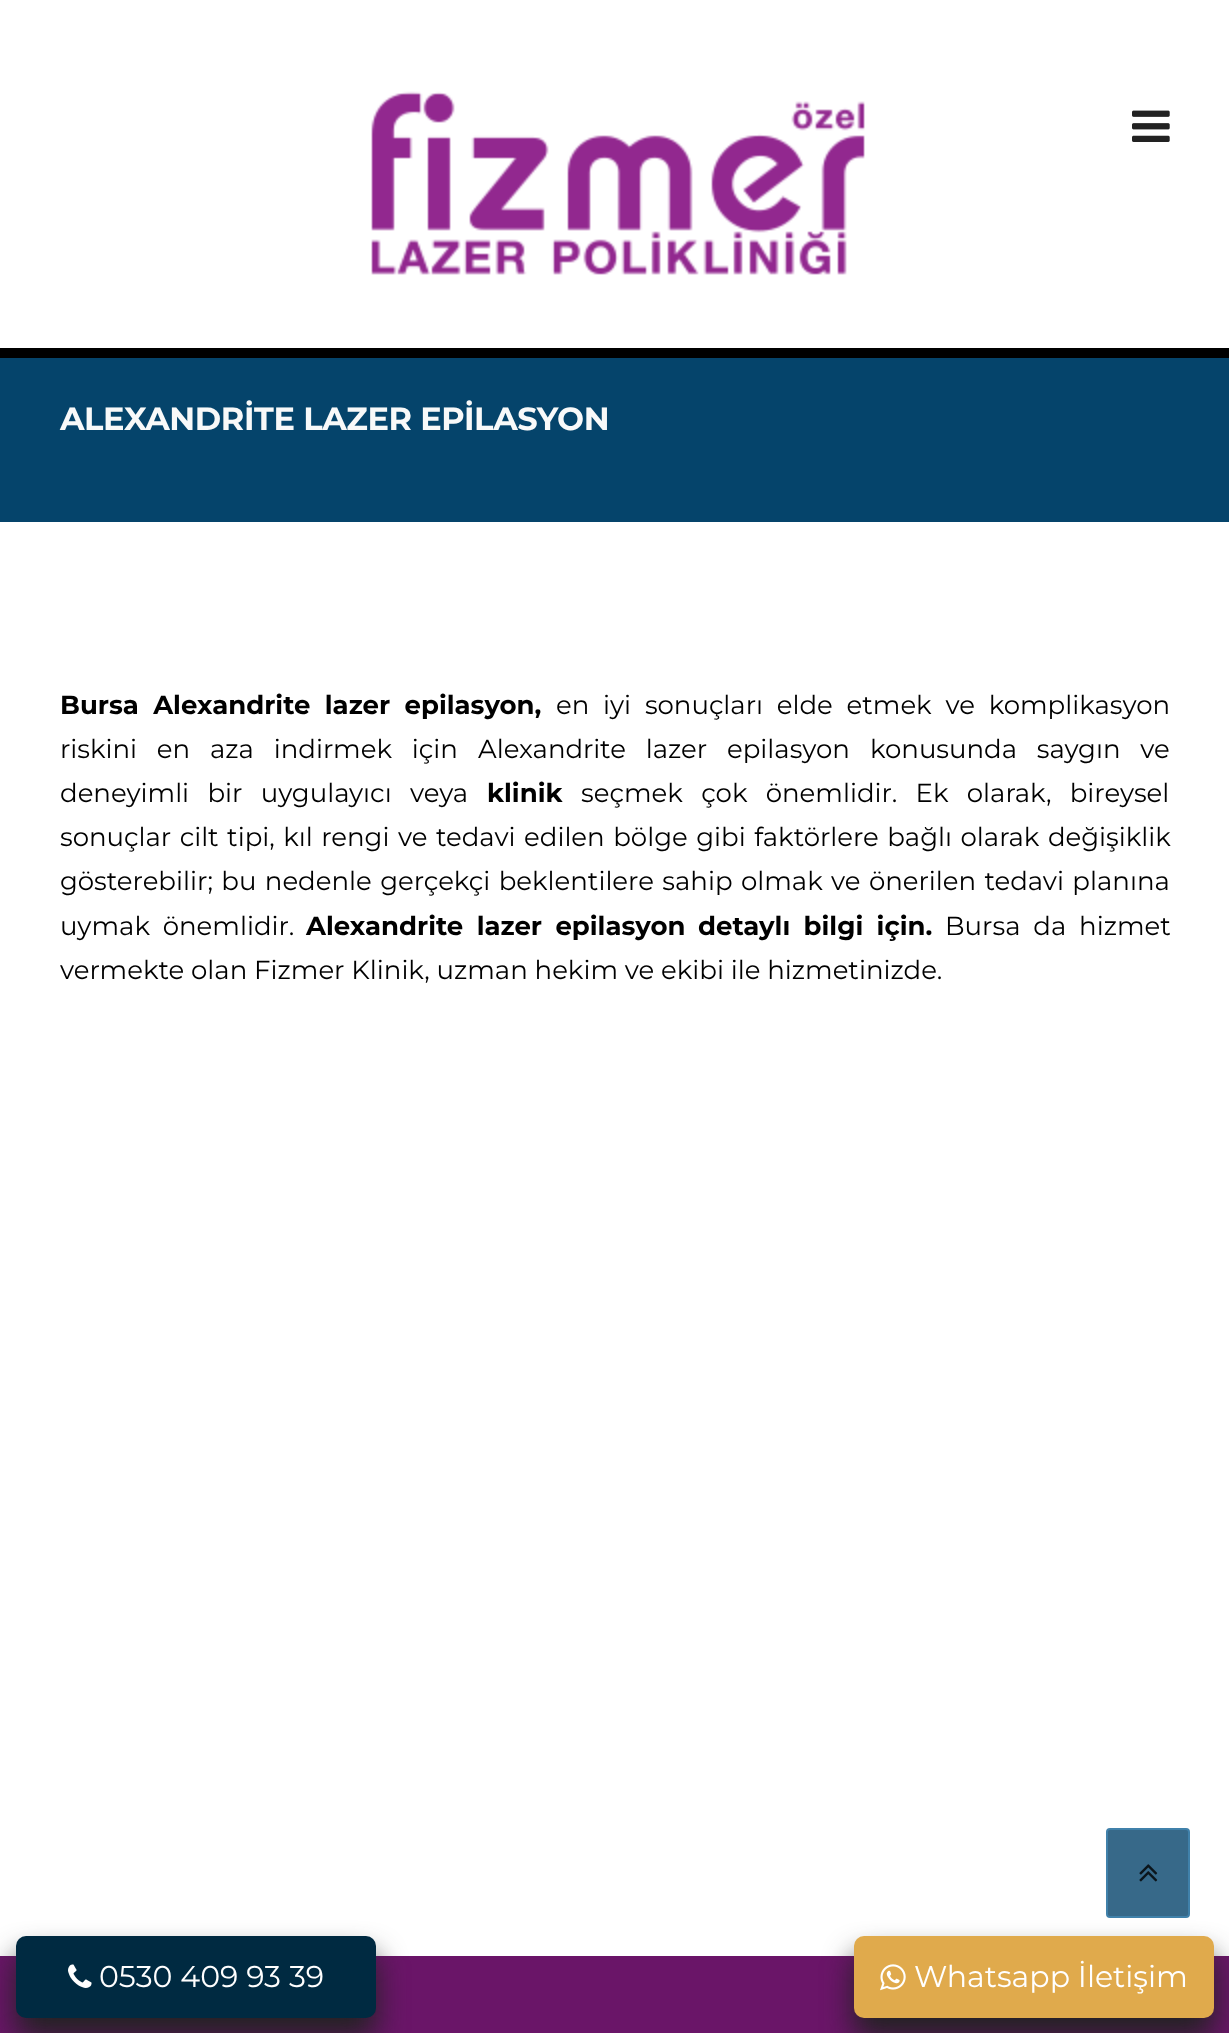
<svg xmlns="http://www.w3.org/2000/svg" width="1229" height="2033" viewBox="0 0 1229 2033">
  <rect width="100%" height="100%" fill="rgb(255,255,255)"/>
  <rect x="0" y="348" width="1229" height="10" fill="rgb(0,0,0)"/>
  <image x="371" y="91" width="494" height="184" href="pic1.png"/>
  <image x="1132" y="110" width="38" height="32" href="pic2.png"/>
  <rect x="0" y="358" width="1229" height="164" fill="rgb(5,68,107)"/>
  <text x="60" y="430" font-family="Montserrat" font-size="32" font-weight="bold" letter-spacing="-0.4" fill="rgb(248,249,249)">ALEXANDRİTE LAZER EPİLASYON</text>
  <text x="60" y="714" word-spacing="7" font-family="Montserrat" font-size="26" font-weight="bold" fill="rgb(0,0,0)">Bursa Alexandrite lazer epilasyon,</text>
  <g font-family="Montserrat" font-size="26" fill="rgb(0,0,0)">
    <text x="556" y="714" word-spacing="7">en iyi sonuçları elde etmek ve komplikasyon</text>
    <text x="60" y="758" word-spacing="13">riskini en aza indirmek için</text>
    <text x="478" y="758" word-spacing="13">Alexandrite lazer epilasyon</text>
    <text x="870" y="758" word-spacing="13">konusunda saygın ve</text>
    <text x="60" y="802" word-spacing="11.5">deneyimli bir uygulayıcı veya</text>
  </g>
  <text x="487" y="802" font-family="Montserrat" font-size="26" font-weight="bold" fill="rgb(0,0,0)">klinik</text>
  <g font-family="Montserrat" font-size="26" fill="rgb(0,0,0)">
    <text x="581" y="802" word-spacing="11.5">seçmek çok önemlidir. Ek olarak, bireysel</text>
    <text>
      <tspan x="60" y="846" word-spacing="1.75">sonuçlar cilt tipi, kıl rengi ve tedavi edilen bölge gibi faktörlere bağlı olarak değişiklik</tspan>
      <tspan x="60" y="890" word-spacing="1.6">gösterebilir; bu nedenle gerçekçi beklentilere sahip olmak ve önerilen tedavi planına</tspan>
      <tspan x="60" y="935" word-spacing="6">uymak önemlidir.</tspan>
    </text>
  </g>
  <g font-family="Montserrat" font-size="26" font-weight="bold" fill="rgb(0,0,0)">
    <text x="306" y="935" word-spacing="6">Alexandrite lazer epilasyon</text>
    <text x="698" y="935" word-spacing="6">detaylı bilgi için.</text>
  </g>
  <g font-family="Montserrat" font-size="26" fill="rgb(0,0,0)">
    <text x="945" y="935" word-spacing="6">Bursa da hizmet</text>
    <text x="60" y="979">vermekte olan Fizmer Klinik, uzman hekim ve ekibi ile hizmetinizde.</text>
  </g>
  <rect x="0" y="1956" width="1229" height="77" fill="rgb(106,21,104)"/>
  <rect x="16" y="1956" width="360" height="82" rx="10" fill="rgb(34,34,34)" filter="blur(15px)"/>
  <rect x="16" y="1936" width="360" height="82" rx="10" fill="rgb(0,42,65)"/>
  <image x="68" y="1964" width="24" height="24" href="pic3.png"/>
  <text x="99" y="1987" font-family="Montserrat" font-size="30" fill="rgb(255,255,255)">0530 409 93 39</text>
  <rect x="1107" y="1829" width="82" height="88" rx="3" fill="rgb(55,105,137)" stroke="rgb(64,129,170)" stroke-width="2"/>
  <rect x="854" y="1956" width="360" height="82" rx="10" fill="rgb(34,34,34)" filter="blur(15px)"/>
  <rect x="854" y="1936" width="360" height="82" rx="10" fill="rgb(224,170,76)"/>
  <image x="880" y="1964" width="26" height="27" href="pic4.png"/>
  <text x="914" y="1987" font-family="Montserrat" font-size="30" fill="rgb(255,255,255)">Whatsapp İletişim</text>
  <image x="1139" y="1864" width="19" height="18" href="pic5.png"/>
</svg>
